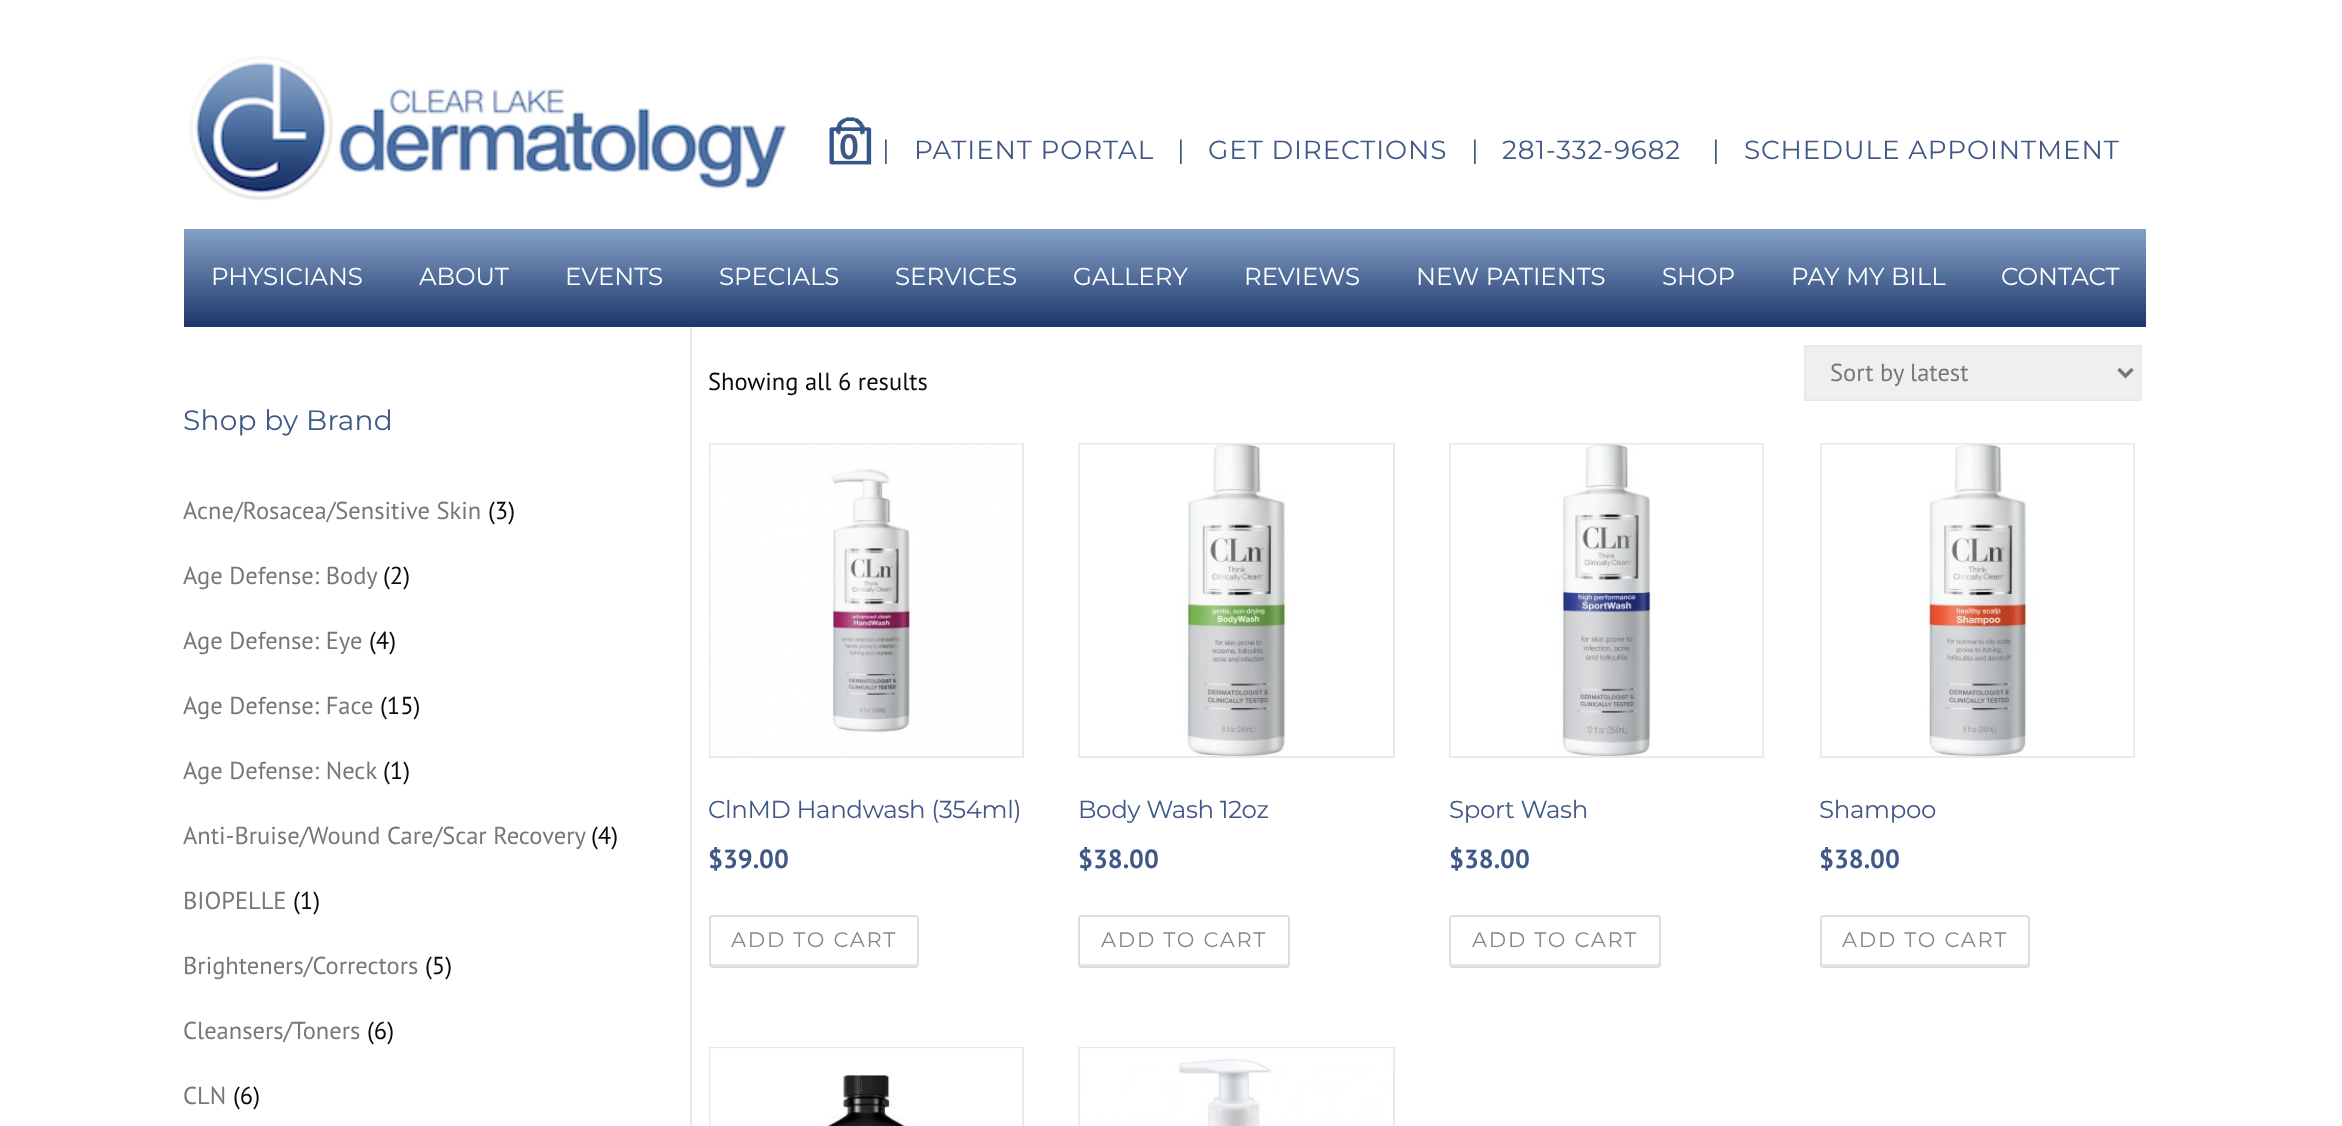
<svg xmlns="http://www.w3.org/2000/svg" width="2342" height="1126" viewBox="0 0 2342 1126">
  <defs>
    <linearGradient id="g1" gradientUnits="userSpaceOnUse" x1="1165" y1="229" x2="1165" y2="327"><stop offset="0" stop-color="rgb(132,161,198)"/><stop offset="1" stop-color="rgb(28,54,107)"/></linearGradient>
  </defs>
  <rect width="100%" height="100%" fill="rgb(255,255,255)"/>
  <image x="189" y="56" width="598" height="145" href="pic1.png"/>
  <image x="829" y="117" width="43" height="48" href="pic2.png"/>
  <text x="839" y="159" font-family="PT Sans" font-size="35" font-weight="bold" fill="rgb(64,88,133)">0</text>
  <g font-family="Montserrat" font-size="26.25" letter-spacing="0.9" fill="rgb(64,88,133)">
    <text x="882" y="159">|</text>
    <text x="914" y="159">PATIENT PORTAL</text>
    <text x="1177" y="159">|</text>
    <text x="1208" y="159">GET DIRECTIONS</text>
    <text x="1471" y="159">|</text>
    <text x="1502" y="159">281-332-9682</text>
    <text x="1712" y="159">|</text>
    <text x="1744" y="159">SCHEDULE APPOINTMENT</text>
  </g>
  <rect x="184" y="229" width="1962" height="98" fill="url(#g1)"/>
  <g font-family="Montserrat" font-size="24.5" fill="rgb(255,255,255)">
    <text x="211" y="285">PHYSICIANS</text>
    <text x="419" y="285">ABOUT</text>
    <text x="565" y="285">EVENTS</text>
    <text x="719" y="285">SPECIALS</text>
    <text x="895" y="285">SERVICES</text>
    <text x="1073" y="285">GALLERY</text>
    <text x="1244" y="285">REVIEWS</text>
    <text x="1416" y="285">NEW PATIENTS</text>
    <text x="1662" y="285">SHOP</text>
    <text x="1791" y="285">PAY MY BILL</text>
    <text x="2001" y="285">CONTACT</text>
  </g>
  <text x="183" y="430" font-family="Montserrat" font-size="28" letter-spacing="0.25" fill="rgb(64,88,133)">Shop by Brand</text>
  <text x="183" y="519" font-family="PT Sans" font-size="24.5" fill="rgb(119,119,119)">Acne/Rosacea/Sensitive Skin</text>
  <text x="488" y="519" font-family="PT Sans" font-size="24.5" fill="rgb(10,10,10)">(3)</text>
  <text x="183" y="584" font-family="PT Sans" font-size="24.5" fill="rgb(119,119,119)">Age Defense: Body</text>
  <text x="383" y="584" font-family="PT Sans" font-size="24.5" fill="rgb(10,10,10)">(2)</text>
  <text x="183" y="649" font-family="PT Sans" font-size="24.5" fill="rgb(119,119,119)">Age Defense: Eye</text>
  <text x="369" y="649" font-family="PT Sans" font-size="24.5" fill="rgb(10,10,10)">(4)</text>
  <text x="183" y="714" font-family="PT Sans" font-size="24.5" fill="rgb(119,119,119)">Age Defense: Face</text>
  <text x="380" y="714" font-family="PT Sans" font-size="24.5" fill="rgb(10,10,10)">(15)</text>
  <text x="183" y="779" font-family="PT Sans" font-size="24.5" fill="rgb(119,119,119)">Age Defense: Neck</text>
  <text x="383" y="779" font-family="PT Sans" font-size="24.5" fill="rgb(10,10,10)">(1)</text>
  <text x="183" y="844" font-family="PT Sans" font-size="24.5" fill="rgb(119,119,119)">Anti-Bruise/Wound Care/Scar Recovery</text>
  <text x="591" y="844" font-family="PT Sans" font-size="24.5" fill="rgb(10,10,10)">(4)</text>
  <text x="183" y="909" font-family="PT Sans" font-size="24.5" fill="rgb(119,119,119)">BIOPELLE</text>
  <text x="293" y="909" font-family="PT Sans" font-size="24.5" fill="rgb(10,10,10)">(1)</text>
  <text x="183" y="974" font-family="PT Sans" font-size="24.5" fill="rgb(119,119,119)">Brighteners/Correctors</text>
  <text x="425" y="974" font-family="PT Sans" font-size="24.5" fill="rgb(10,10,10)">(5)</text>
  <text x="183" y="1039" font-family="PT Sans" font-size="24.5" fill="rgb(119,119,119)">Cleansers/Toners</text>
  <text x="367" y="1039" font-family="PT Sans" font-size="24.5" fill="rgb(10,10,10)">(6)</text>
  <text x="183" y="1104" font-family="PT Sans" font-size="24.5" fill="rgb(119,119,119)">CLN</text>
  <text x="233" y="1104" font-family="PT Sans" font-size="24.5" fill="rgb(10,10,10)">(6)</text>
  <rect x="690" y="327" width="2" height="799" fill="rgb(233,233,233)"/>
  <text x="708" y="390" font-family="PT Sans" font-size="24.5" fill="rgb(10,10,10)">Showing all 6 results</text>
  <rect x="1805" y="346" width="336" height="54" fill="rgb(239,239,239)" stroke="rgb(233,233,233)" stroke-width="2"/>
  <path d="M2118.5 369L2125.5 376L2132.5 369" fill="none" stroke="rgb(119,119,119)" stroke-width="3.5"/>
  <text x="1830" y="381" font-family="PT Sans" font-size="24.5" fill="rgb(119,119,119)">Sort by latest</text>
  <rect x="710" y="444" width="313" height="313" fill="none" stroke="rgb(233,233,233)" stroke-width="2"/>
  <image x="710" y="444" width="312" height="312" href="pic3.png"/>
  <text x="708" y="818" font-family="Montserrat" font-size="24.5" letter-spacing="-0.35" fill="rgb(64,88,133)">ClnMD Handwash (354ml)</text>
  <text x="708" y="868" font-family="PT Sans" font-size="26.25" font-weight="bold" fill="rgb(64,88,133)">$39.00</text>
  <path d="M711 964C711 965 712 966 713 966H915C917 966 917 964 917 962C917 963 916 964 915 964Z" fill="rgb(230,230,230)"/>
  <rect x="710" y="916" width="208" height="51" rx="3" fill="none" stroke="rgb(221,221,221)" stroke-width="2"/>
  <text x="731" y="947" font-family="Montserrat" font-size="21" letter-spacing="1.75" fill="rgb(136,136,136)">ADD TO CART</text>
  <rect x="1079" y="444" width="315" height="313" fill="none" stroke="rgb(233,233,233)" stroke-width="2"/>
  <image x="1079" y="444" width="314" height="312" href="pic4.png"/>
  <text x="1078" y="818" font-family="Montserrat" font-size="24.5" letter-spacing="-0.35" fill="rgb(64,88,133)">Body Wash 12oz</text>
  <text x="1078" y="868" font-family="PT Sans" font-size="26.25" font-weight="bold" fill="rgb(64,88,133)">$38.00</text>
  <path d="M1080 962V964C1080 965 1081 966 1082 966H1286C1287 966 1288 965 1288 964V962C1288 963 1287 964 1286 964H1082L1080 963Z" fill="rgb(230,230,230)"/>
  <rect x="1079" y="916" width="210" height="51" rx="3" fill="none" stroke="rgb(221,221,221)" stroke-width="2"/>
  <text x="1101" y="947" font-family="Montserrat" font-size="21" letter-spacing="1.75" fill="rgb(136,136,136)">ADD TO CART</text>
  <rect x="1450" y="444" width="313" height="313" fill="none" stroke="rgb(233,233,233)" stroke-width="2"/>
  <image x="1450" y="444" width="313" height="312" href="pic5.png"/>
  <text x="1449" y="818" font-family="Montserrat" font-size="24.5" letter-spacing="-0.35" fill="rgb(64,88,133)">Sport Wash</text>
  <text x="1449" y="868" font-family="PT Sans" font-size="26.25" font-weight="bold" fill="rgb(64,88,133)">$38.00</text>
  <path d="M1451 962V964C1451 965 1452 966 1453 966H1657C1658 966 1659 965 1659 964V962V963L1657 964H1452Z" fill="rgb(230,230,230)"/>
  <rect x="1450" y="916" width="210" height="51" rx="3" fill="none" stroke="rgb(221,221,221)" stroke-width="2"/>
  <text x="1472" y="947" font-family="Montserrat" font-size="21" letter-spacing="1.75" fill="rgb(136,136,136)">ADD TO CART</text>
  <rect x="1821" y="444" width="313" height="313" fill="none" stroke="rgb(233,233,233)" stroke-width="2"/>
  <image x="1821" y="444" width="313" height="312" href="pic6.png"/>
  <text x="1819" y="818" font-family="Montserrat" font-size="24.5" letter-spacing="-0.35" fill="rgb(64,88,133)">Shampoo</text>
  <text x="1819" y="868" font-family="PT Sans" font-size="26.25" font-weight="bold" fill="rgb(64,88,133)">$38.00</text>
  <path d="M1822 962V964C1822 965 1823 966 1824 966H2026C2027 966 2028 965 2028 964V962C2028 963 2027 964 2026 964H1824L1822 963Z" fill="rgb(230,230,230)"/>
  <rect x="1821" y="916" width="208" height="51" rx="3" fill="none" stroke="rgb(221,221,221)" stroke-width="2"/>
  <text x="1842" y="947" font-family="Montserrat" font-size="21" letter-spacing="1.75" fill="rgb(136,136,136)">ADD TO CART</text>
  <rect x="710" y="1048" width="313" height="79" fill="none" stroke="rgb(233,233,233)" stroke-width="2"/>
  <image x="710" y="1048" width="312" height="78" href="pic7.png"/>
  <rect x="1079" y="1048" width="315" height="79" fill="none" stroke="rgb(233,233,233)" stroke-width="2"/>
  <image x="1079" y="1048" width="314" height="78" href="pic8.png"/>
</svg>
